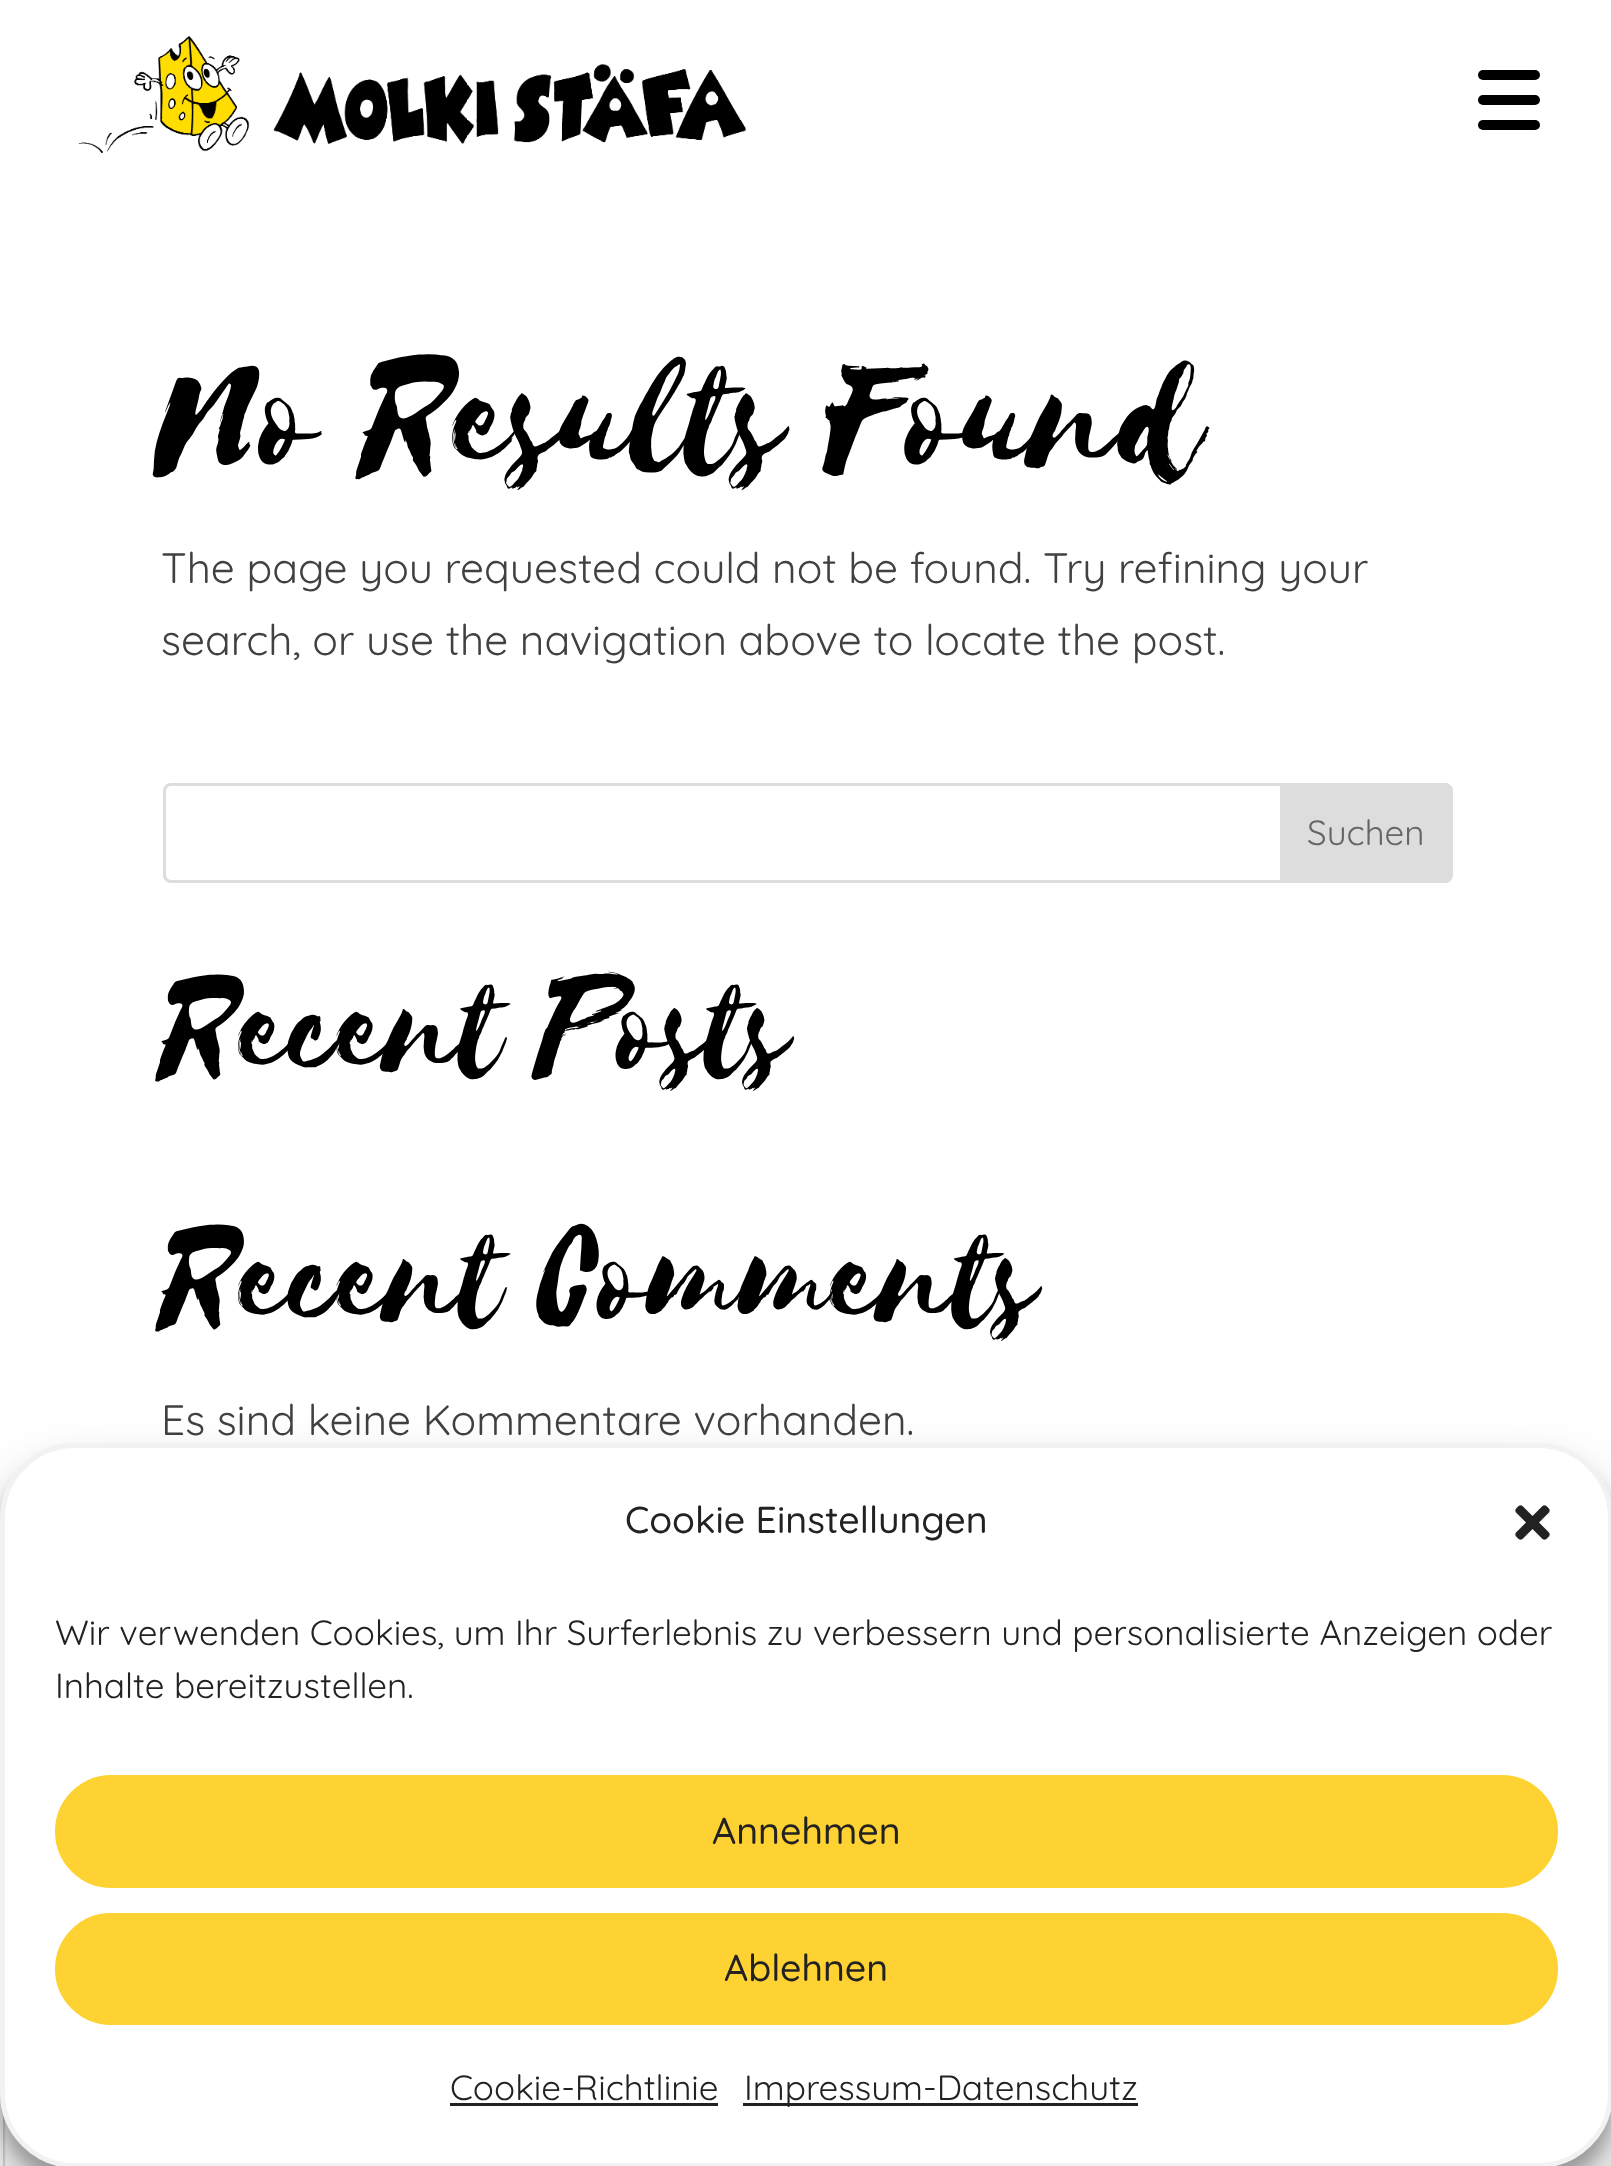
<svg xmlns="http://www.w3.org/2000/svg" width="1611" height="2166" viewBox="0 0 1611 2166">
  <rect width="100%" height="100%" fill="rgb(255,255,255)"/>
  <image x="78" y="36" width="668" height="117" href="pic1.png"/>
  <rect x="1478" y="70" width="62" height="10" rx="5" fill="rgb(0,0,0)"/>
  <rect x="1478" y="95" width="62" height="10" rx="5" fill="rgb(0,0,0)"/>
  <rect x="1478" y="120" width="62" height="10" rx="5" fill="rgb(0,0,0)"/>
  <text x="161" y="468" font-family="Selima" font-size="175" fill="rgb(0,0,0)">No Results Found</text>
  <g font-family="Quicksand" font-size="42.5" font-weight="300" fill="rgb(65,64,66)">
    <text>
      <tspan x="161" y="583">The page you requested could not be found. Try refining your</tspan>
      <tspan x="161" y="655">search, or use the navigation above to locate the post.</tspan>
    </text>
  </g>
  <rect x="164.5" y="784.5" width="1287" height="97" rx="6.5" fill="none" stroke="rgb(221,221,221)" stroke-width="3"/>
  <path d="M1281.5 784.5H1445C1448.5 784.5 1451.5 787.5 1451.5 791V875C1451.5 878.5 1448.5 881.5 1445 881.5H1281.5Z" fill="rgb(221,221,221)" stroke="rgb(221,221,221)" stroke-width="3"/>
  <text x="1307" y="845" font-family="Quicksand" font-size="35" font-weight="300" fill="rgb(102,102,102)">Suchen</text>
  <g font-family="Selima" font-size="150" fill="rgb(0,0,0)">
    <text>
      <tspan x="161" y="1072">Recent Posts</tspan>
      <tspan x="161" y="1322">Recent Comments</tspan>
    </text>
  </g>
  <text x="161" y="1435" font-family="Quicksand" font-size="42.5" font-weight="300" fill="rgb(65,64,66)">Es sind keine Kommentare vorhanden.</text>
  <image x="0" y="2093" width="1611" height="73" href="pic2.png"/>
  <rect x="0" y="1458" width="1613" height="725" rx="75" fill="rgba(0,0,0,0.23)" filter="blur(7.5px)"/>
  <rect x="0" y="1468" width="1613" height="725" rx="75" fill="rgba(0,0,0,0.19)" filter="blur(25px)"/>
  <rect x="2.5" y="1445.5" width="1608" height="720" rx="72.5" fill="rgb(255,255,255)" stroke="rgb(242,242,242)" stroke-width="5"/>
  <text x="625" y="1533" font-family="'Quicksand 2'" font-size="37.5" font-weight="300" fill="rgb(34,34,34)">Cookie Einstellungen</text>
  <image x="1515" y="1505" width="35" height="35" href="pic3.png"/>
  <g font-family="Quicksand" font-size="35" font-weight="300" fill="rgb(34,34,34)">
    <text>
      <tspan x="55" y="1645">Wir verwenden Cookies, um Ihr Surferlebnis zu verbessern und personalisierte Anzeigen oder</tspan>
      <tspan x="55" y="1698">Inhalte bereitzustellen.</tspan>
    </text>
  </g>
  <rect x="56.5" y="1776.5" width="1500" height="110" rx="55" fill="rgb(254,210,50)" stroke="rgb(254,210,50)" stroke-width="3"/>
  <text x="712" y="1844" font-family="'Quicksand 2'" font-size="37.5" font-weight="300" fill="rgb(34,34,34)">Annehmen</text>
  <rect x="56.5" y="1914.5" width="1500" height="109" rx="54.5" fill="rgb(254,210,50)" stroke="rgb(254,210,50)" stroke-width="3"/>
  <text x="724" y="1981" font-family="'Quicksand 2'" font-size="37.5" font-weight="300" fill="rgb(34,34,34)">Ablehnen</text>
  <text x="450" y="2100" font-family="Quicksand" font-size="35" font-weight="300" fill="rgb(34,34,34)">Cookie-Richtlinie</text>
  <rect x="450" y="2103" width="268" height="3" fill="rgb(34,34,34)"/>
  <rect x="743" y="2103" width="395" height="3" fill="rgb(34,34,34)"/>
  <text x="744" y="2100" font-family="Quicksand" font-size="35" font-weight="300" fill="rgb(34,34,34)">Impressum-Datenschutz</text>
</svg>
